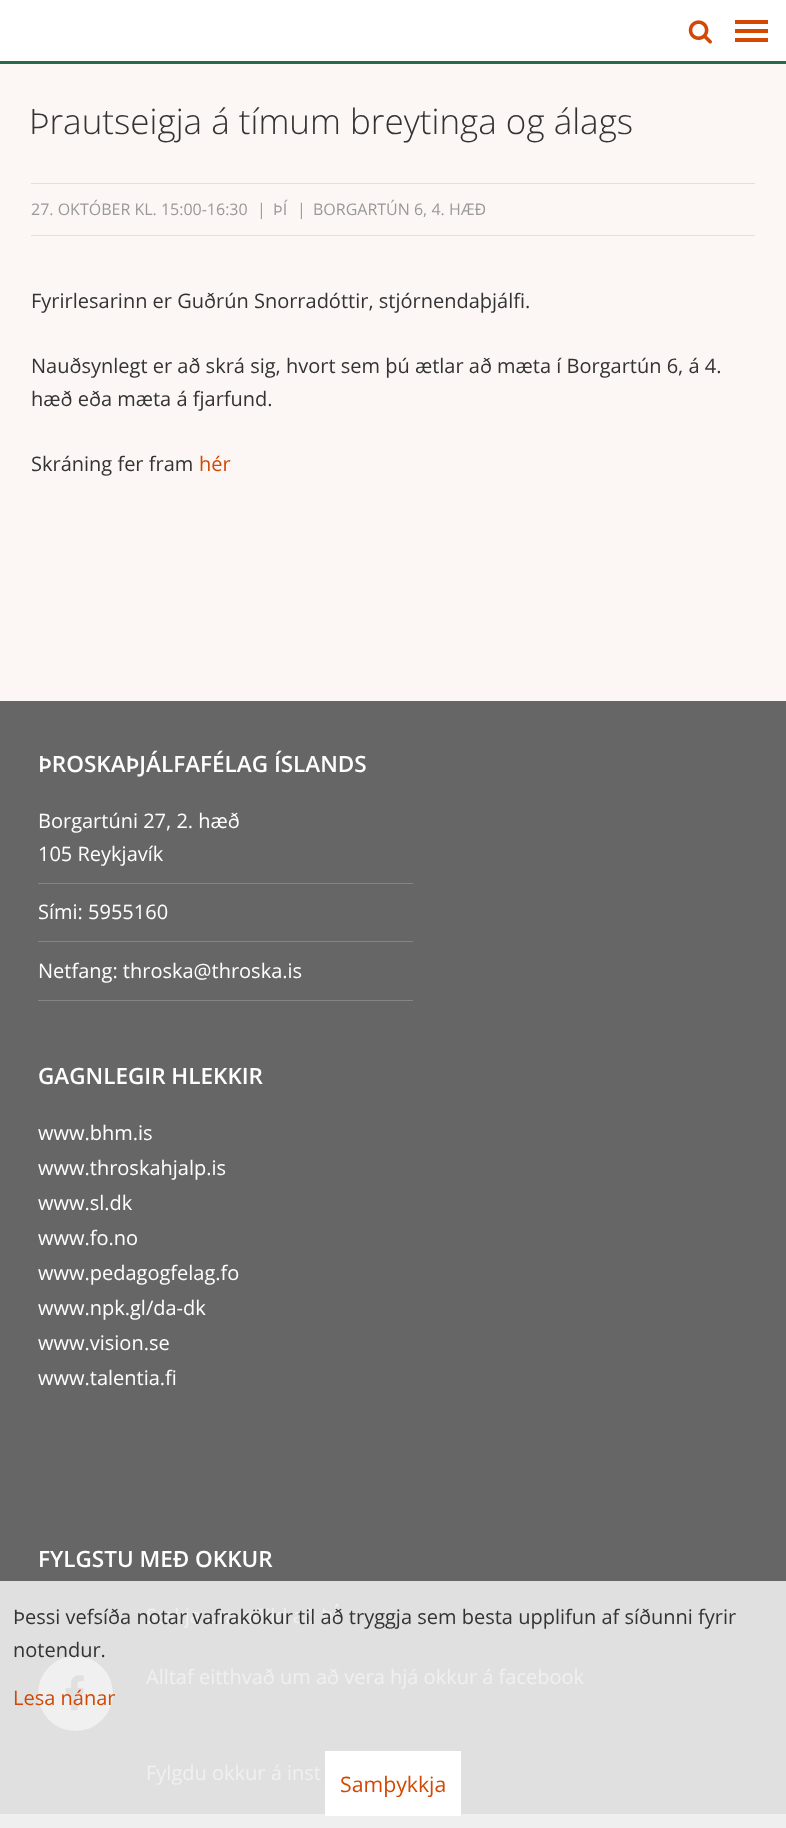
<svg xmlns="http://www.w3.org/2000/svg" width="786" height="1828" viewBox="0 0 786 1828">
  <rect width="100%" height="100%" fill="rgb(252,247,244)"/>
  <rect x="0" y="1814" width="786" height="14" fill="rgb(239,239,239)"/>
  <rect x="0" y="0" width="786" height="61" fill="rgb(255,255,255)"/>
  <rect x="0" y="61" width="786" height="3" fill="rgb(38,108,70)"/>
  <image x="688" y="20" width="24" height="24" href="pic1.png"/>
  <rect x="735" y="20" width="33" height="4" fill="rgb(210,72,4)"/>
  <rect x="735" y="29" width="33" height="4" fill="rgb(210,72,4)"/>
  <rect x="735" y="38" width="33" height="4" fill="rgb(210,72,4)"/>
  <text x="29" y="134" font-family="Open Sans" font-size="35" font-weight="300" fill="rgb(51,51,51)">Þrautseigja á tímum breytinga og álags</text>
  <rect x="31" y="183" width="724" height="1" fill="rgb(224,224,224)"/>
  <rect x="31" y="235" width="724" height="1" fill="rgb(224,224,224)"/>
  <g font-family="Open Sans" font-size="16" fill="rgb(153,153,153)">
    <text x="31" y="215">27. OKTÓBER KL. 15:00-16:30</text>
    <text x="257" y="215">|</text>
    <text x="273" y="215">ÞÍ</text>
    <text x="297" y="215">|</text>
    <text x="313" y="215">BORGARTÚN 6, 4. HÆÐ</text>
  </g>
  <g font-family="Open Sans" font-size="20" fill="rgb(51,51,51)">
    <text x="31" y="308">Fyrirlesarinn er Guðrún Snorradóttir, stjórnendaþjálfi.</text>
    <text>
      <tspan x="31" y="373">Nauðsynlegt er að skrá sig, hvort sem þú ætlar að mæta í Borgartún 6, á 4.</tspan>
      <tspan x="31" y="406">hæð eða mæta á fjarfund.</tspan>
    </text>
    <text x="31" y="471">Skráning fer fram</text>
  </g>
  <text x="199" y="471" font-family="Open Sans" font-size="20" fill="rgb(210,72,4)">hér</text>
  <rect x="0" y="701" width="786" height="880" fill="rgb(102,102,102)"/>
  <rect x="0" y="1581" width="786" height="233" fill="rgb(224,224,224)"/>
  <text x="38" y="772" font-family="Open Sans" font-size="22.5" font-weight="600" fill="rgb(255,255,255)">ÞROSKAÞJÁLFAFÉLAG ÍSLANDS</text>
  <rect x="38" y="883" width="375" height="1" fill="rgb(133,133,133)"/>
  <g font-family="Open Sans" font-size="20" fill="rgb(255,255,255)">
    <text>
      <tspan x="38" y="828">Borgartúni 27, 2. hæð</tspan>
      <tspan x="38" y="861">105 Reykjavík</tspan>
    </text>
  </g>
  <rect x="38" y="941" width="375" height="1" fill="rgb(133,133,133)"/>
  <text x="38" y="919" font-family="Open Sans" font-size="20" fill="rgb(255,255,255)">Sími: 5955160</text>
  <rect x="38" y="1000" width="375" height="1" fill="rgb(133,133,133)"/>
  <text x="38" y="978" font-family="Open Sans" font-size="20" fill="rgb(255,255,255)">Netfang: throska@throska.is</text>
  <text x="38" y="1084" font-family="Open Sans" font-size="22.5" font-weight="600" fill="rgb(255,255,255)">GAGNLEGIR HLEKKIR</text>
  <g font-family="Open Sans" font-size="20" fill="rgb(255,255,255)">
    <text>
      <tspan x="38" y="1140">www.bhm.is</tspan>
      <tspan x="38" y="1175">www.throskahjalp.is</tspan>
      <tspan x="38" y="1210">www.sl.dk</tspan>
      <tspan x="38" y="1245">www.fo.no</tspan>
      <tspan x="38" y="1280">www.pedagogfelag.fo</tspan>
      <tspan x="38" y="1315">www.npk.gl/da-dk</tspan>
      <tspan x="38" y="1350">www.vision.se</tspan>
      <tspan x="38" y="1385">www.talentia.fi</tspan>
    </text>
  </g>
  <text x="38" y="1567" font-family="Open Sans" font-size="22.5" font-weight="600" fill="rgb(255,255,255)">FYLGSTU MEÐ OKKUR</text>
  <text x="146" y="1623" font-family="Open Sans" font-size="20" fill="rgb(240,240,240)">Sækja um aðild að ÞÍ</text>
  <circle cx="75.5" cy="1693.5" r="37.5" fill="rgb(240,240,240)"/>
  <image x="65" y="1675" width="19" height="36" href="pic2.png"/>
  <g font-family="Open Sans" font-size="20" fill="rgb(240,240,240)">
    <text x="146" y="1684">Alltaf eitthvað um að vera hjá okkur á facebook</text>
    <text x="146" y="1780">Fylgdu okkur á inst</text>
  </g>
  <g font-family="Open Sans" font-size="20" fill="rgb(51,51,51)">
    <text>
      <tspan x="13" y="1624">Þessi vefsíða notar vafrakökur til að tryggja sem besta upplifun af síðunni fyrir</tspan>
      <tspan x="13" y="1657">notendur.</tspan>
    </text>
  </g>
  <text x="13" y="1705" font-family="Open Sans" font-size="20" fill="rgb(210,72,4)">Lesa nánar</text>
  <rect x="325" y="1751" width="136" height="65" fill="rgb(255,255,255)"/>
  <text x="340" y="1792" font-family="Open Sans" font-size="21.25" fill="rgb(210,72,4)">Samþykkja</text>
</svg>
